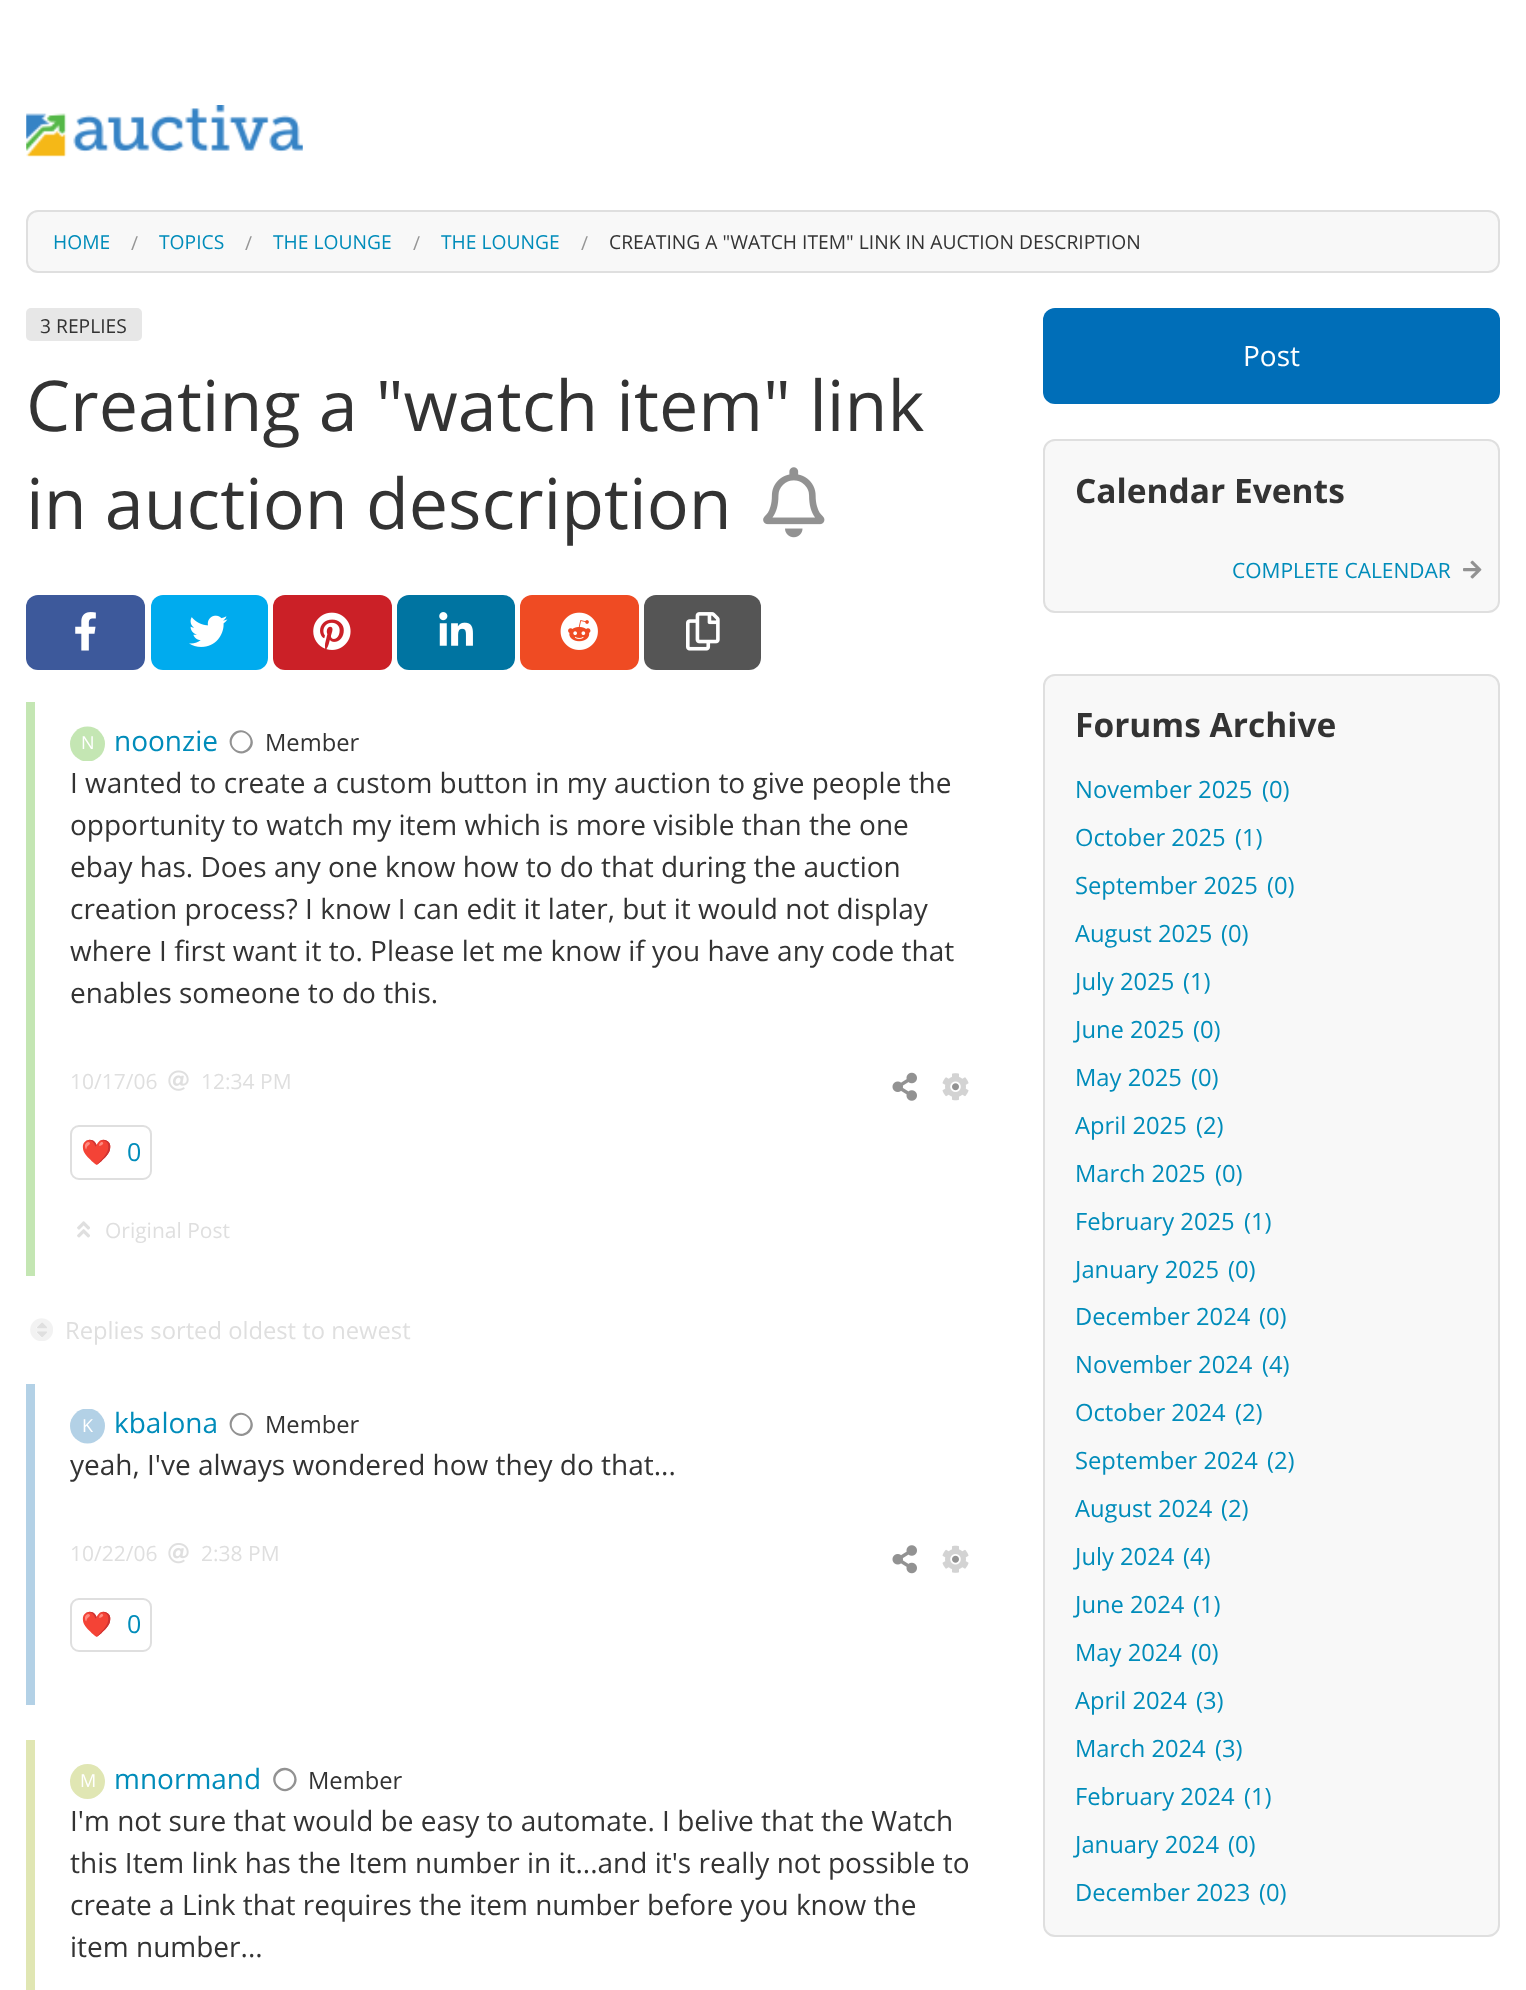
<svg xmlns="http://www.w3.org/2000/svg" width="1526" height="1990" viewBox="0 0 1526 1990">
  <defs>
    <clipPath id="clip1"><rect x="70" y="726" width="35" height="35"/></clipPath>
    <clipPath id="clip2"><rect x="70" y="1409" width="35" height="35"/></clipPath>
  </defs>
  <rect width="100%" height="100%" fill="rgb(255,255,255)"/>
  <image x="26" y="105" width="277" height="52" href="pic1.png"/>
  <rect x="27" y="211" width="1472" height="61" rx="11" fill="rgb(248,248,248)" stroke="rgb(223,223,223)" stroke-width="2"/>
  <text x="53" y="249" font-family="Open Sans" font-size="19.25" fill="rgb(0,140,186)">HOME</text>
  <text x="131" y="250" font-family="Open Sans" font-size="19.25" fill="rgb(150,150,150)">/</text>
  <text x="159" y="249" font-family="Open Sans" font-size="19.25" fill="rgb(0,140,186)">TOPICS</text>
  <text x="245" y="250" font-family="Open Sans" font-size="19.25" fill="rgb(150,150,150)">/</text>
  <text x="273" y="249" font-family="Open Sans" font-size="19.25" fill="rgb(0,140,186)">THE LOUNGE</text>
  <text x="413" y="250" font-family="Open Sans" font-size="19.25" fill="rgb(150,150,150)">/</text>
  <text x="441" y="249" font-family="Open Sans" font-size="19.25" fill="rgb(0,140,186)">THE LOUNGE</text>
  <text x="581" y="250" font-family="Open Sans" font-size="19.25" fill="rgb(150,150,150)">/</text>
  <text x="609" y="249" font-family="Open Sans" font-size="19.25" fill="rgb(51,51,51)">CREATING A "WATCH ITEM" LINK IN AUCTION DESCRIPTION</text>
  <rect x="26" y="308" width="116" height="33" rx="5" fill="rgb(231,231,231)"/>
  <text x="40" y="333" font-family="Open Sans" font-size="19.25" fill="rgb(51,51,51)">3 REPLIES</text>
  <g font-family="Open Sans" font-size="70" fill="rgb(51,51,51)">
    <text>
      <tspan x="26" y="431">Creating a "watch item" link</tspan>
      <tspan x="26" y="529">in auction description</tspan>
    </text>
  </g>
  <image x="763" y="467" width="62" height="71" href="pic2.png"/>
  <rect x="26" y="595" width="119" height="75" rx="12" fill="rgb(61,89,155)"/>
  <image x="75" y="612" width="21" height="39" href="pic3.png"/>
  <rect x="151" y="595" width="117" height="75" rx="12" fill="rgb(0,171,238)"/>
  <image x="189" y="615" width="39" height="32" href="pic4.png"/>
  <rect x="273" y="595" width="119" height="75" rx="12" fill="rgb(203,32,39)"/>
  <image x="313" y="612" width="38" height="38" href="pic5.png"/>
  <rect x="397" y="595" width="118" height="75" rx="12" fill="rgb(0,116,161)"/>
  <image x="439" y="612" width="34" height="34" href="pic6.png"/>
  <rect x="520" y="595" width="119" height="75" rx="12" fill="rgb(239,75,35)"/>
  <image x="560" y="612" width="38" height="38" href="pic7.png"/>
  <rect x="644" y="595" width="117" height="75" rx="12" fill="rgb(85,85,85)"/>
  <image x="686" y="612" width="34" height="39" href="pic8.png"/>
  <rect x="26" y="702" width="9" height="574" fill="rgb(196,230,179)"/>
  <g clip-path="url(#clip1)">
    <circle cx="87.5" cy="744" r="17.5" fill="rgb(196,230,179)"/>
  </g>
  <text x="81" y="749" font-family="Open Sans" font-size="18" fill="rgb(255,255,255)">N</text>
  <text x="114" y="751" font-family="Open Sans" font-size="28" fill="rgb(0,140,186)">noonzie</text>
  <path d="M233 733.5C243.5 723 260 739.5 249.5 750C238.5 760.5 222.5 744.5 233 733.5ZM234.5 748.5C243 757 256.5 744 247.5 735C239 726.5 226 740 234.5 748.5Z" fill="rgb(146,146,146)"/>
  <text x="265" y="751" font-family="Open Sans" font-size="23.75" fill="rgb(51,51,51)">Member</text>
  <g font-family="Open Sans" font-size="28" fill="rgb(51,51,51)">
    <text>
      <tspan x="70" y="793">I wanted to create a custom button in my auction to give people the</tspan>
      <tspan x="70" y="835">opportunity to watch my item which is more visible than the one</tspan>
      <tspan x="70" y="877">ebay has. Does any one know how to do that during the auction</tspan>
      <tspan x="70" y="919">creation process? I know I can edit it later, but it would not display</tspan>
      <tspan x="70" y="961">where I first want it to. Please let me know if you have any code that</tspan>
      <tspan x="70" y="1003">enables someone to do this.</tspan>
    </text>
  </g>
  <text x="70" y="1089" font-family="Open Sans" font-size="21" fill="rgb(223,223,223)">10/17/06</text>
  <image x="168" y="1070" width="21" height="21" href="pic9.png"/>
  <text x="201" y="1089" font-family="Open Sans" font-size="21" fill="rgb(223,223,223)">12:34 PM</text>
  <image x="892" y="1072" width="25" height="29" href="pic10.png"/>
  <image x="952" y="1083" width="7" height="8" href="pic12.png"/>
  <image x="942" y="1073" width="27" height="28" href="pic11.png"/>
  <rect x="71" y="1126" width="80" height="53" rx="8" fill="none" stroke="rgb(223,223,223)" stroke-width="2"/>
  <text x="81" y="1161" font-family="Noto Color Emoji" font-size="25" fill="rgb(0,140,186)">❤️</text>
  <text x="127" y="1161" font-family="Open Sans" font-size="25" fill="rgb(0,140,186)">0</text>
  <image x="77" y="1221" width="13" height="17" href="pic13.png"/>
  <text x="105" y="1238" font-family="Open Sans" font-size="21" fill="rgb(223,223,223)">Original Post</text>
  <image x="37" y="1322" width="10" height="15" href="pic15.png"/>
  <image x="30" y="1318" width="23" height="23" href="pic14.png"/>
  <text x="65" y="1339" font-family="Open Sans" font-size="23.75" fill="rgb(223,223,223)">Replies sorted oldest to newest</text>
  <rect x="26" y="1384" width="9" height="321" fill="rgb(179,209,230)"/>
  <g clip-path="url(#clip2)">
    <circle cx="87.5" cy="1426" r="17.5" fill="rgb(179,209,230)"/>
  </g>
  <text x="82" y="1432" font-family="Open Sans" font-size="18" fill="rgb(255,255,255)">K</text>
  <text x="114" y="1433" font-family="Open Sans" font-size="28" fill="rgb(0,140,186)">kbalona</text>
  <path d="M233 1416C243.5 1405.5 260 1422 249.5 1432.5C238.5 1443 222.5 1427 233 1416ZM234.5 1431C243 1439.5 256.5 1426.5 247.5 1417.5C239 1409 226 1422.5 234.5 1431Z" fill="rgb(146,146,146)"/>
  <text x="265" y="1433" font-family="Open Sans" font-size="23.75" fill="rgb(51,51,51)">Member</text>
  <text x="70" y="1475" font-family="Open Sans" font-size="28" fill="rgb(51,51,51)">yeah, I've always wondered how they do that...</text>
  <text x="70" y="1561" font-family="Open Sans" font-size="21" fill="rgb(223,223,223)">10/22/06</text>
  <image x="168" y="1543" width="21" height="21" href="pic16.png"/>
  <text x="201" y="1561" font-family="Open Sans" font-size="21" fill="rgb(223,223,223)">2:38 PM</text>
  <image x="892" y="1545" width="25" height="29" href="pic17.png"/>
  <image x="952" y="1555" width="7" height="8" href="pic19.png"/>
  <image x="942" y="1545" width="27" height="28" href="pic18.png"/>
  <rect x="71" y="1599" width="80" height="52" rx="8" fill="none" stroke="rgb(223,223,223)" stroke-width="2"/>
  <text x="81" y="1633" font-family="Noto Color Emoji" font-size="25" fill="rgb(0,140,186)">❤️</text>
  <text x="127" y="1633" font-family="Open Sans" font-size="25" fill="rgb(0,140,186)">0</text>
  <rect x="26" y="1740" width="9" height="250" fill="rgb(224,230,179)"/>
  <circle cx="87.5" cy="1781.5" r="17.5" fill="rgb(224,230,179)"/>
  <text x="80" y="1787" font-family="Open Sans" font-size="18" fill="rgb(255,255,255)">M</text>
  <text x="114" y="1789" font-family="Open Sans" font-size="28" fill="rgb(0,140,186)">mnormand</text>
  <path d="M276.5 1771.5C287.5 1760.5 304 1777 293 1787.5C282.5 1798.5 266 1782 276.5 1771.5ZM278.5 1786C287 1795 300 1781.5 291.5 1773C283 1764.5 269.5 1777.5 278.5 1786Z" fill="rgb(146,146,146)"/>
  <text x="308" y="1789" font-family="Open Sans" font-size="23.75" fill="rgb(51,51,51)">Member</text>
  <g font-family="Open Sans" font-size="28" fill="rgb(51,51,51)">
    <text>
      <tspan x="70" y="1831">I'm not sure that would be easy to automate. I belive that the Watch</tspan>
      <tspan x="70" y="1873">this Item link has the Item number in it...and it's really not possible to</tspan>
      <tspan x="70" y="1915">create a Link that requires the item number before you know the</tspan>
      <tspan x="70" y="1957">item number...</tspan>
    </text>
  </g>
  <rect x="1043" y="308" width="457" height="96" rx="12" fill="rgb(0,110,184)"/>
  <text x="1243" y="366" font-family="Open Sans" font-size="28" fill="rgb(255,255,255)">Post</text>
  <rect x="1044" y="440" width="455" height="172" rx="11" fill="rgb(248,248,248)" stroke="rgb(223,223,223)" stroke-width="2"/>
  <text x="1075" y="503" font-family="Open Sans" font-size="33.5" font-weight="bold" fill="rgb(51,51,51)">Calendar Events</text>
  <text x="1232" y="578" font-family="Open Sans" font-size="21" fill="rgb(0,140,186)">COMPLETE CALENDAR</text>
  <image x="1463" y="560" width="19" height="19" href="pic20.png"/>
  <rect x="1044" y="675" width="455" height="1261" rx="11" fill="rgb(248,248,248)" stroke="rgb(223,223,223)" stroke-width="2"/>
  <text x="1075" y="737" font-family="Open Sans" font-size="33.5" font-weight="bold" fill="rgb(51,51,51)">Forums Archive</text>
  <g font-family="Open Sans" font-size="23.75" fill="rgb(0,140,186)">
    <text x="1075" y="798">November 2025</text>
    <text x="1262" y="798">(0)</text>
    <text x="1075" y="846">October 2025</text>
    <text x="1235" y="846">(1)</text>
    <text x="1075" y="894">September 2025</text>
    <text x="1267" y="894">(0)</text>
    <text x="1075" y="942">August 2025</text>
    <text x="1221" y="942">(0)</text>
    <text x="1075" y="990">July 2025</text>
    <text x="1183" y="990">(1)</text>
    <text x="1075" y="1038">June 2025</text>
    <text x="1193" y="1038">(0)</text>
    <text x="1075" y="1086">May 2025</text>
    <text x="1191" y="1086">(0)</text>
    <text x="1075" y="1134">April 2025</text>
    <text x="1196" y="1134">(2)</text>
    <text x="1075" y="1182">March 2025</text>
    <text x="1215" y="1182">(0)</text>
    <text x="1075" y="1230">February 2025</text>
    <text x="1244" y="1230">(1)</text>
    <text x="1075" y="1278">January 2025</text>
    <text x="1228" y="1278">(0)</text>
    <text x="1075" y="1325">December 2024</text>
    <text x="1259" y="1325">(0)</text>
    <text x="1075" y="1373">November 2024</text>
    <text x="1262" y="1373">(4)</text>
    <text x="1075" y="1421">October 2024</text>
    <text x="1235" y="1421">(2)</text>
    <text x="1075" y="1469">September 2024</text>
    <text x="1267" y="1469">(2)</text>
    <text x="1075" y="1517">August 2024</text>
    <text x="1221" y="1517">(2)</text>
    <text x="1075" y="1565">July 2024</text>
    <text x="1183" y="1565">(4)</text>
    <text x="1075" y="1613">June 2024</text>
    <text x="1193" y="1613">(1)</text>
    <text x="1075" y="1661">May 2024</text>
    <text x="1191" y="1661">(0)</text>
    <text x="1075" y="1709">April 2024</text>
    <text x="1196" y="1709">(3)</text>
    <text x="1075" y="1757">March 2024</text>
    <text x="1215" y="1757">(3)</text>
    <text x="1075" y="1805">February 2024</text>
    <text x="1244" y="1805">(1)</text>
    <text x="1075" y="1853">January 2024</text>
    <text x="1228" y="1853">(0)</text>
    <text x="1075" y="1901">December 2023</text>
    <text x="1259" y="1901">(0)</text>
  </g>
</svg>
